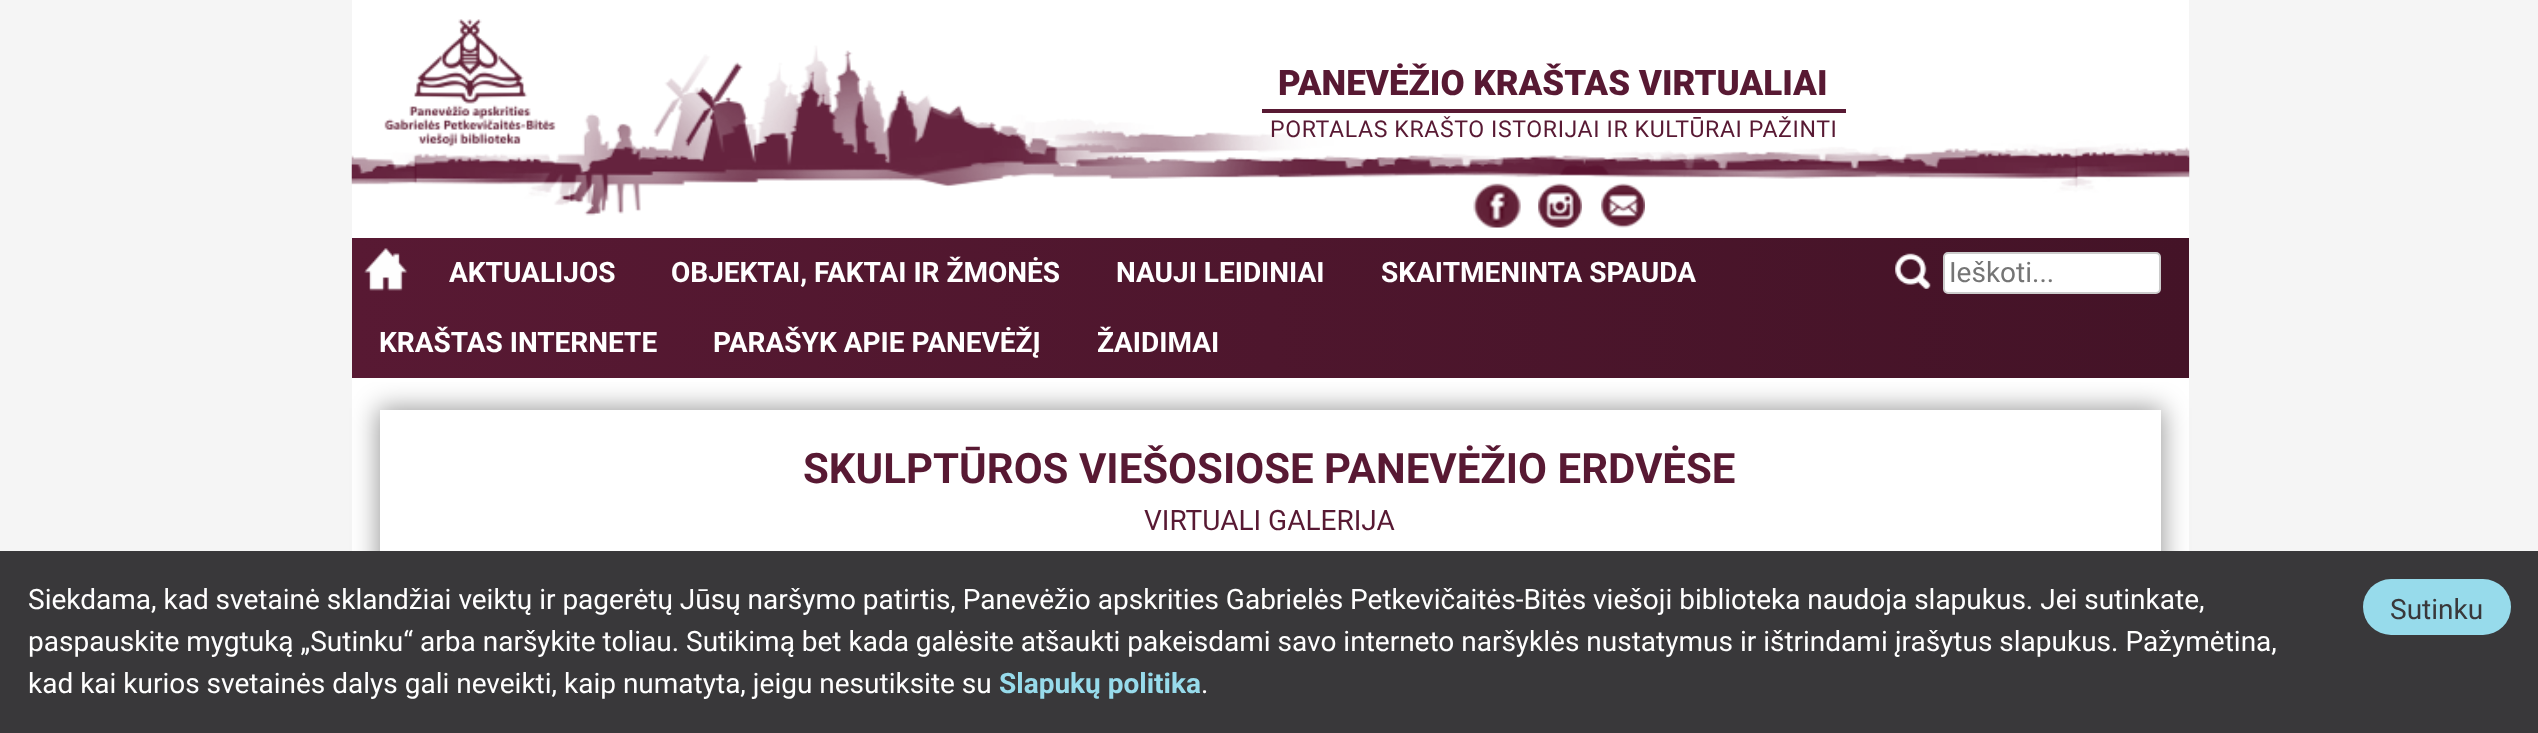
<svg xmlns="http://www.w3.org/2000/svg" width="2538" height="733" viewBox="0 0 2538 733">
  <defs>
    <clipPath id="clip1"><path d="M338 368H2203V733H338ZM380 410H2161V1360H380Z" clip-rule="evenodd"/></clipPath>
    <linearGradient id="g1" gradientUnits="userSpaceOnUse" x1="352" y1="308" x2="2189" y2="308"><stop offset="0" stop-color="rgb(88,25,51)"/><stop offset="1" stop-color="rgb(68,19,39)"/></linearGradient>
  </defs>
  <rect width="100%" height="100%" fill="rgb(245,245,245)"/>
  <rect x="352" y="0" width="1837" height="238" fill="rgb(255,255,255)"/>
  <image x="351" y="19" width="1839" height="197" href="pic1.png"/>
  <rect x="1262" y="109" width="584" height="4" fill="rgb(88,25,51)"/>
  <text x="1278" y="95" font-family="Roboto" font-size="35" font-weight="900" fill="rgb(88,25,51)">PANEVĖŽIO KRAŠTAS VIRTUALIAI</text>
  <text x="1270" y="137" font-family="Roboto" font-size="23.1" letter-spacing="0.6" fill="rgb(88,25,51)">PORTALAS KRAŠTO ISTORIJAI IR KULTŪRAI PAŽINTI</text>
  <image x="1473" y="183" width="48" height="45" href="pic2.png"/>
  <image x="1538" y="183" width="44" height="45" href="pic3.png"/>
  <image x="1601" y="183" width="44" height="45" href="pic4.png"/>
  <rect x="352" y="382" width="1837" height="169" fill="rgb(255,255,255)"/>
  <g clip-path="url(#clip1)">
    <rect x="378" y="408" width="1785" height="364" fill="rgba(0,0,0,0.4)" filter="blur(13px)"/>
  </g>
  <rect x="352" y="238" width="1837" height="140" fill="url(#g1)"/>
  <rect x="352" y="378" width="1837" height="4" fill="rgb(255,255,255)"/>
  <image x="364" y="248" width="44" height="43" href="pic5.png"/>
  <g font-family="Roboto" font-size="28" font-weight="bold" fill="rgb(255,255,255)">
    <text x="449" y="282">AKTUALIJOS</text>
    <text x="671" y="282">OBJEKTAI, FAKTAI IR ŽMONĖS</text>
    <text x="1116" y="282">NAUJI LEIDINIAI</text>
    <text x="1381" y="282">SKAITMENINTA SPAUDA</text>
    <text x="379" y="352">KRAŠTAS INTERNETE</text>
    <text x="713" y="352">PARAŠYK APIE PANEVĖŽĮ</text>
    <text x="1097" y="352">ŽAIDIMAI</text>
  </g>
  <image x="1895" y="253" width="36" height="36" href="pic6.png"/>
  <rect x="1944" y="253" width="216" height="40" rx="4" fill="rgb(255,255,255)" stroke="rgb(204,204,204)" stroke-width="2"/>
  <text x="1949" y="282" font-family="Roboto" font-size="28" fill="rgb(117,117,117)">Ieškoti...</text>
  <text x="803" y="483" font-family="Roboto" font-size="42" font-weight="bold" fill="rgb(88,25,51)">SKULPTŪROS VIEŠOSIOSE PANEVĖŽIO ERDVĖSE</text>
  <text x="1144" y="530" font-family="Roboto" font-size="28" fill="rgb(88,25,51)">VIRTUALI GALERIJA</text>
  <rect x="0" y="551" width="2538" height="182" fill="rgb(57,56,58)"/>
  <g font-family="Roboto" font-size="28" fill="rgb(255,255,255)">
    <text>
      <tspan x="28" y="609">Siekdama, kad svetainė sklandžiai veiktų ir pagerėtų Jūsų naršymo patirtis, Panevėžio apskrities Gabrielės Petkevičaitės-Bitės viešoji biblioteka naudoja slapukus. Jei sutinkate,</tspan>
      <tspan x="28" y="651">paspauskite mygtuką „Sutinku“ arba naršykite toliau. Sutikimą bet kada galėsite atšaukti pakeisdami savo interneto naršyklės nustatymus ir ištrindami įrašytus slapukus. Pažymėtina,</tspan>
      <tspan x="28" y="693">kad kai kurios svetainės dalys gali neveikti, kaip numatyta, jeigu nesutiksite su</tspan>
    </text>
  </g>
  <text x="999" y="693" font-family="Roboto" font-size="28" font-weight="bold" fill="rgb(151,219,235)">Slapukų politika</text>
  <text x="1201" y="693" font-family="Roboto" font-size="28" fill="rgb(255,255,255)">.</text>
  <rect x="2363" y="579" width="148" height="56" rx="28" fill="rgb(151,219,235)"/>
  <text x="2390" y="619" font-family="Roboto" font-size="28" fill="rgb(57,56,58)">Sutinku</text>
</svg>
